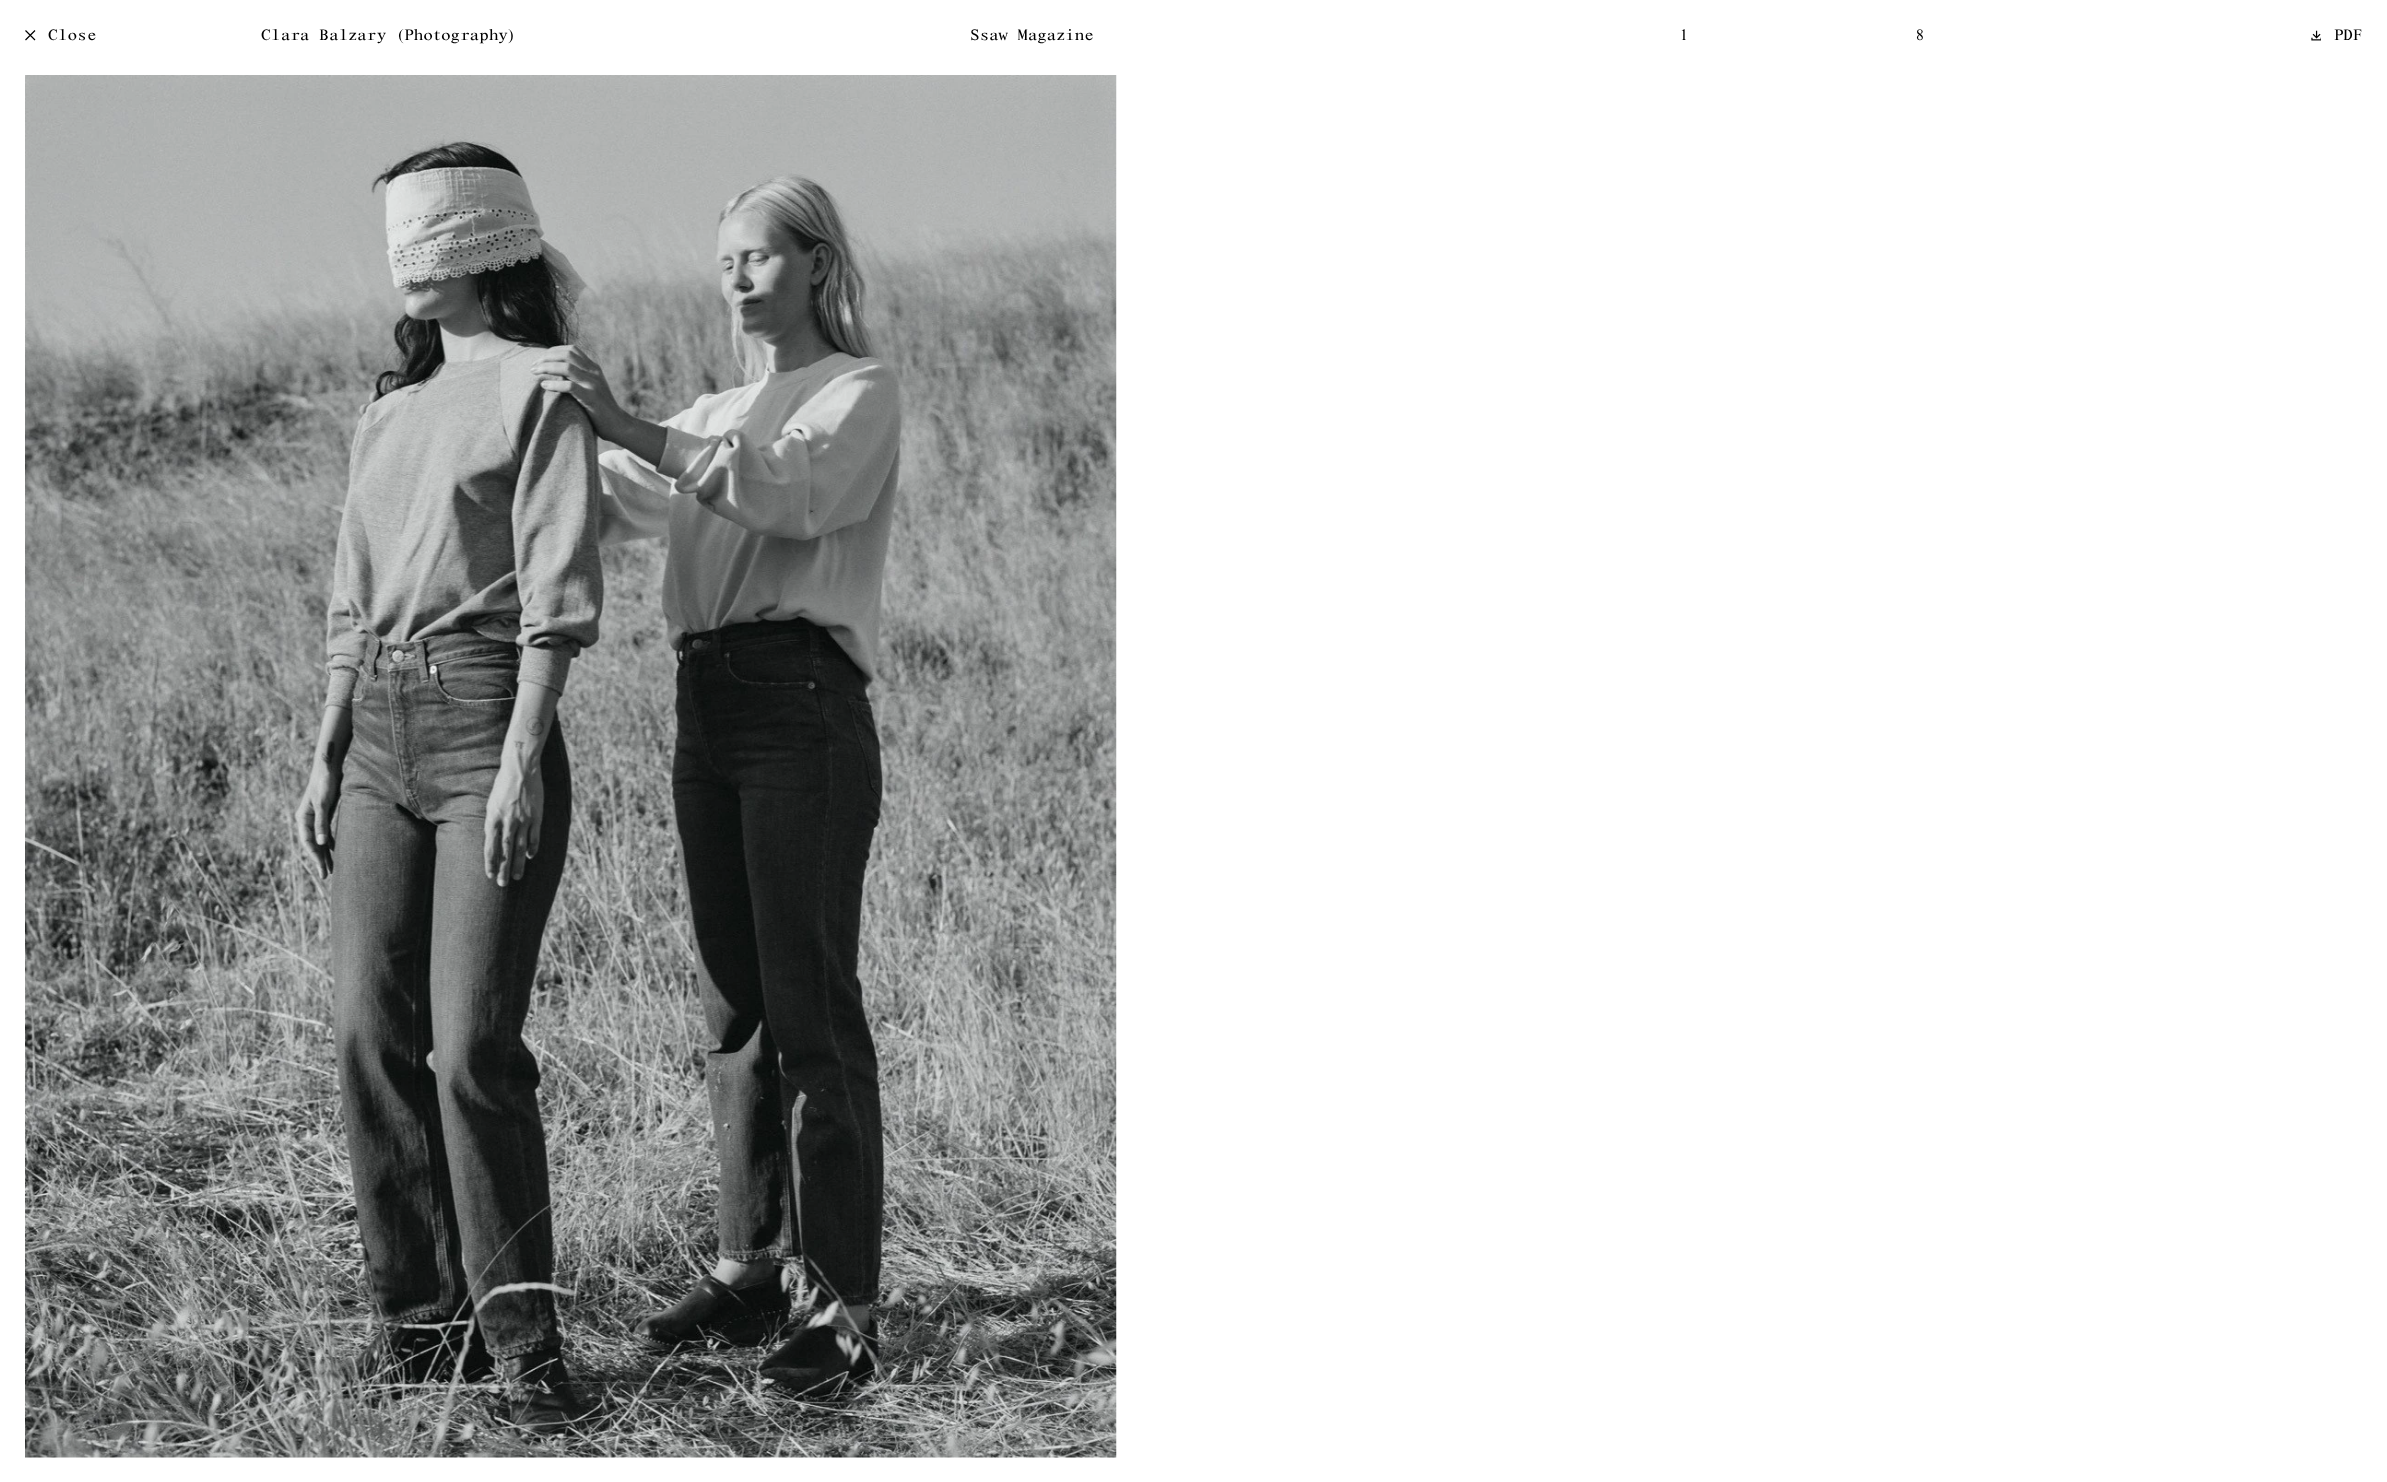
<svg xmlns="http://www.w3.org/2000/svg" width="2387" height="1482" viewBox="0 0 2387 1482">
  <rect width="100%" height="100%" fill="rgb(255,255,255)"/>
  <path d="M35 40L25.5 30.5M25.5 40L35 30.5" fill="none" stroke="rgb(0,0,0)" stroke-width="1.2"/>
  <g font-family="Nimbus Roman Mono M" font-size="16.25" fill="rgb(0,0,0)">
    <text x="48" y="40">Close</text>
    <text x="261" y="40">Clara Balzary (Photography)</text>
    <text x="970" y="40">Ssaw Magazine</text>
    <text x="1679" y="40">1</text>
    <text x="1915" y="40">8</text>
  </g>
  <image x="2311" y="30" width="10" height="11" href="pic1.png"/>
  <text x="2334" y="40" font-family="Nimbus Roman Mono M" font-size="16.25" fill="rgb(0,0,0)">PDF</text>
  <image x="25" y="75" width="1092" height="1383" href="pic2.png"/>
</svg>
